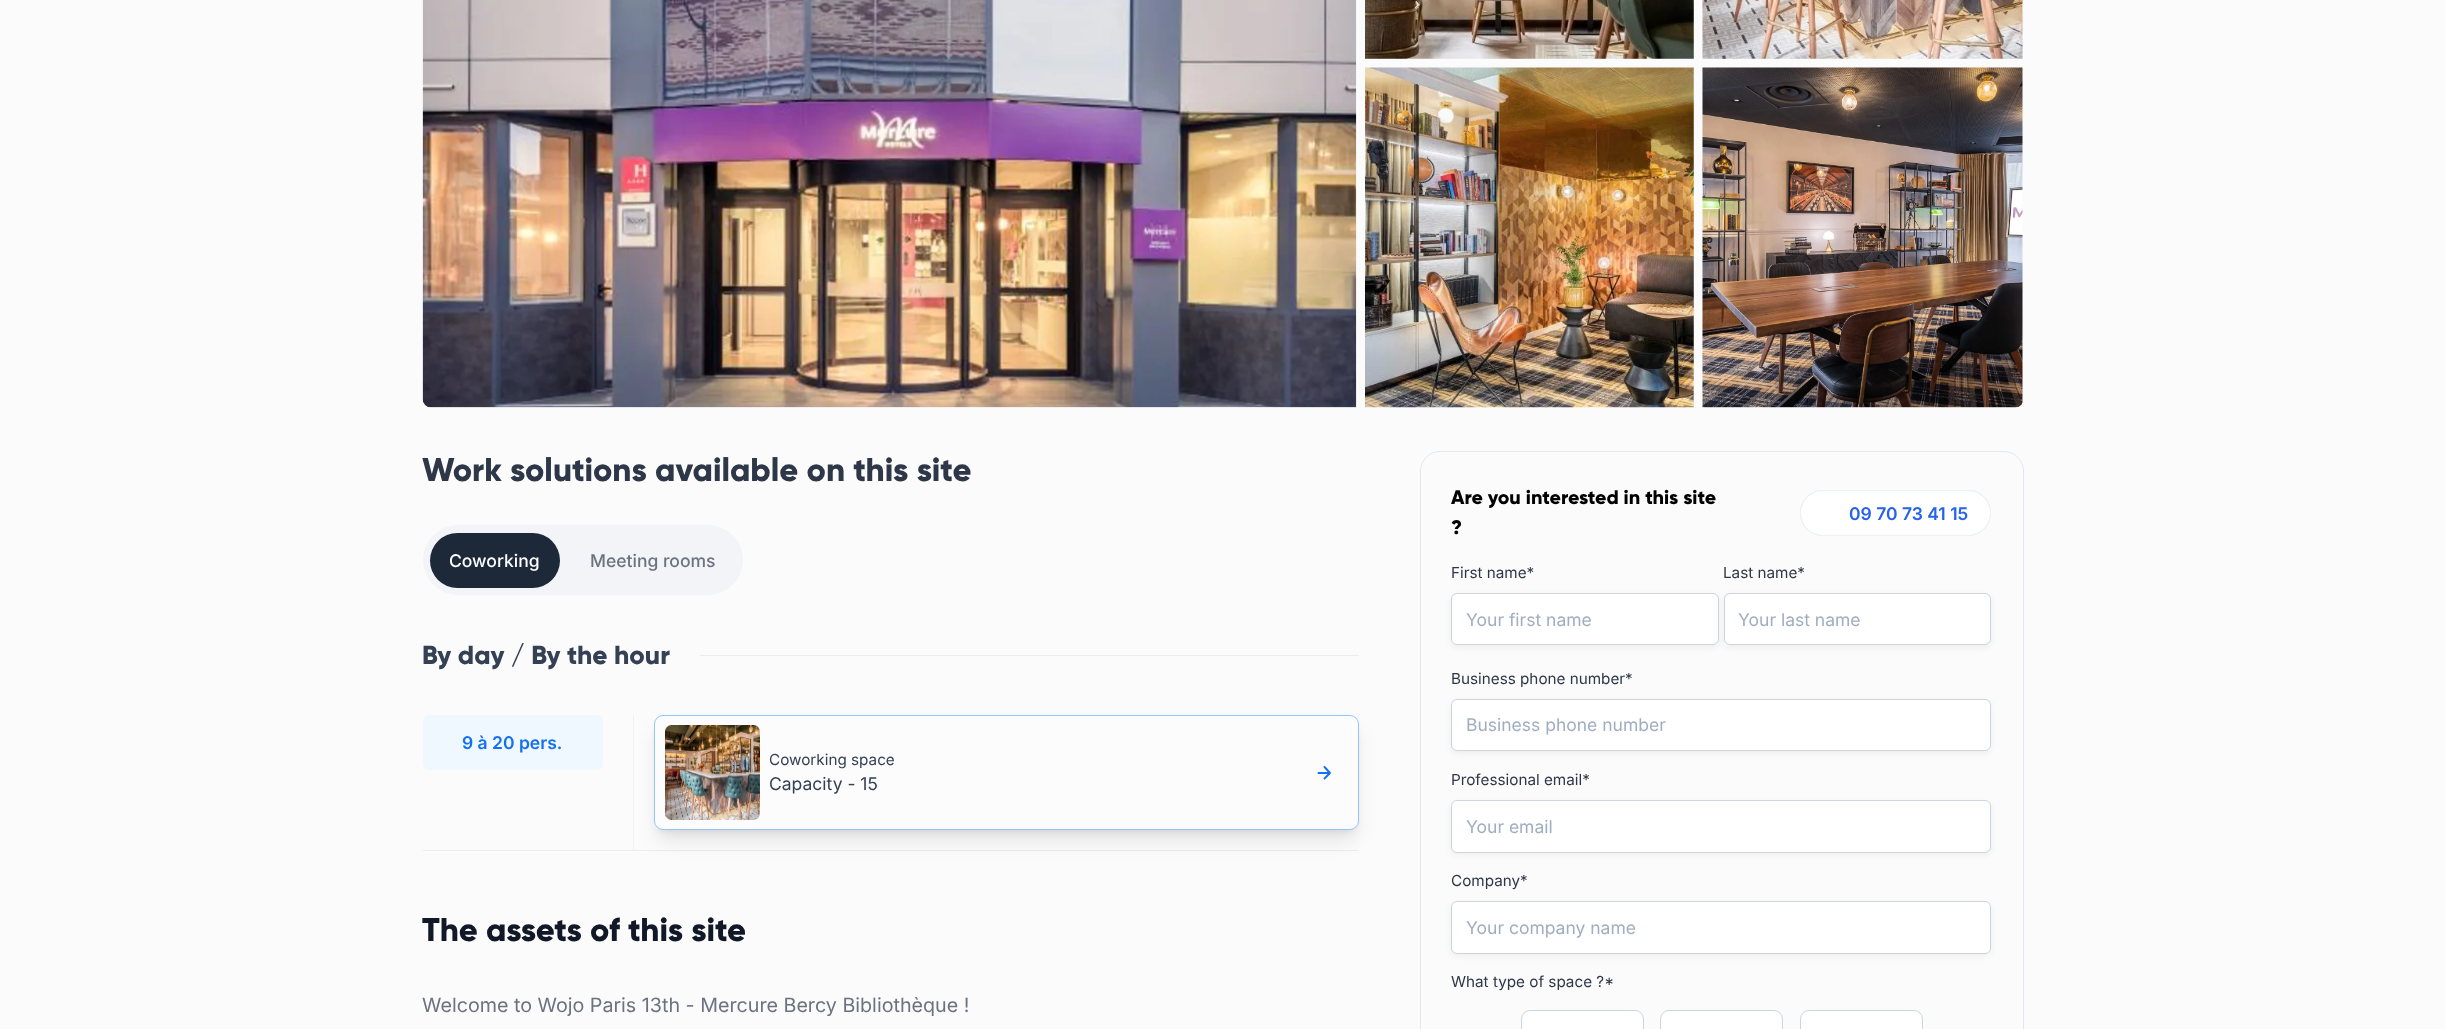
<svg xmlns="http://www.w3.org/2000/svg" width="2445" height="1029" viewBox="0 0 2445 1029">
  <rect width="100%" height="100%" fill="rgb(251,251,251)"/>
  <image x="422" y="0" width="935" height="408" href="pic1.png"/>
  <image x="1365" y="0" width="329" height="59" href="pic2.png"/>
  <image x="1702" y="0" width="321" height="59" href="pic3.png"/>
  <image x="1365" y="67" width="329" height="341" href="pic4.png"/>
  <image x="1702" y="67" width="321" height="341" href="pic5.png"/>
  <text x="422" y="481" font-family="Gilroy" font-size="32.8" font-weight="800" fill="rgb(45,55,72)">Work solutions available on this site</text>
  <rect x="423" y="525" width="320" height="70" rx="35" fill="rgb(242,244,247)"/>
  <rect x="430" y="533" width="130" height="55" rx="27.5" fill="rgb(29,41,57)"/>
  <text x="449" y="567" font-family="Inter" font-size="17.5" font-weight="500" fill="rgb(255,255,255)">Coworking</text>
  <text x="590" y="567" font-family="Inter" font-size="17.5" font-weight="500" fill="rgb(107,114,128)">Meeting rooms</text>
  <text x="422" y="664" font-family="Gilroy" font-size="26.25" font-weight="800" fill="rgb(52,64,84)">By day / By the hour</text>
  <rect x="700" y="655" width="659" height="1" fill="rgb(234,236,240)"/>
  <rect x="423" y="715" width="180" height="55" rx="6" fill="rgb(239,248,255)"/>
  <text x="462" y="749" font-family="Inter" font-size="17.5" font-weight="600" fill="rgb(21,112,239)">9 à 20 pers.</text>
  <rect x="633" y="715" width="1" height="135" fill="rgb(237,242,247)"/>
  <rect x="659" y="725" width="695" height="105" rx="4" fill="rgba(0,0,0,0.1)" filter="blur(4px)"/>
  <rect x="423" y="850" width="936" height="1" fill="rgb(234,236,240)"/>
  <rect x="658" y="731" width="697" height="108" rx="5" fill="rgba(0,0,0,0.1)" filter="blur(9.5px)"/>
  <rect x="654.5" y="715.5" width="704" height="114" rx="8.5" fill="rgb(252,252,253)" stroke="rgb(147,197,253)"/>
  <image x="665" y="725" width="95" height="95" href="pic6.png"/>
  <text x="769" y="765" font-family="Inter" font-size="15.25" fill="rgb(52,64,84)">Coworking space</text>
  <text x="769" y="790" font-family="Inter" font-size="17.5" fill="rgb(52,64,84)">Capacity - 15</text>
  <path d="M1318.5 773H1330M1330 773L1324.5 767M1330 773L1324.5 778.5" fill="none" stroke="rgb(21,112,239)" stroke-width="1.9" stroke-linecap="round" stroke-linejoin="round"/>
  <text x="422" y="941" font-family="Gilroy" font-size="32.8" font-weight="800" fill="rgb(17,24,39)">The assets of this site</text>
  <text x="422" y="1012" font-family="Inter" font-size="19.7" fill="rgb(107,114,128)">Welcome to Wojo Paris 13th - Mercure Bercy Bibliothèque !</text>
  <rect x="1420.5" y="451.5" width="603" height="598" rx="19.5" fill="none" stroke="rgb(226,232,240)"/>
  <g font-family="Gilroy" font-size="19.7" font-weight="800" fill="rgb(0,0,0)">
    <text>
      <tspan x="1451" y="504">Are you interested in this site</tspan>
      <tspan x="1451" y="534">?</tspan>
    </text>
  </g>
  <rect x="1800" y="490" width="191" height="46" rx="23" fill="rgba(0,0,0,0.1)" filter="blur(0.5px)"/>
  <rect x="1800.5" y="490.5" width="190" height="45" rx="22.5" fill="rgb(255,255,255)" stroke="rgb(237,242,247)"/>
  <text x="1849" y="520" font-family="Inter" font-size="17.5" font-weight="600" fill="rgb(37,99,235)">09 70 73 41 15</text>
  <text x="1451" y="578" font-family="Inter" font-size="15.25" fill="rgb(45,55,72)">First name*</text>
  <rect x="1451" y="595" width="268" height="53" rx="6" fill="rgba(0,0,0,0.05)" filter="blur(3px)"/>
  <rect x="1451.5" y="593.5" width="267" height="51" rx="5.5" fill="rgb(255,255,255)" stroke="rgb(203,213,224)"/>
  <text x="1466" y="626" font-family="Inter" font-size="17.5" fill="rgb(160,174,192)">Your first name</text>
  <text x="1723" y="578" font-family="Inter" font-size="15.25" fill="rgb(45,55,72)">Last name*</text>
  <rect x="1724" y="595" width="267" height="53" rx="6" fill="rgba(0,0,0,0.05)" filter="blur(3px)"/>
  <rect x="1724.5" y="593.5" width="266" height="51" rx="5.5" fill="rgb(255,255,255)" stroke="rgb(203,213,224)"/>
  <text x="1738" y="626" font-family="Inter" font-size="17.5" fill="rgb(160,174,192)">Your last name</text>
  <text x="1451" y="684" font-family="Inter" font-size="15.25" fill="rgb(45,55,72)">Business phone number*</text>
  <rect x="1451" y="701" width="540" height="53" rx="6" fill="rgba(0,0,0,0.05)" filter="blur(3px)"/>
  <rect x="1451.5" y="699.5" width="539" height="51" rx="5.5" fill="rgb(255,255,255)" stroke="rgb(203,213,224)"/>
  <text x="1466" y="731" font-family="Inter" font-size="17.5" fill="rgb(160,174,192)">Business phone number</text>
  <text x="1451" y="785" font-family="Inter" font-size="15.25" fill="rgb(45,55,72)">Professional email*</text>
  <rect x="1451" y="803" width="540" height="52" rx="6" fill="rgba(0,0,0,0.05)" filter="blur(3px)"/>
  <rect x="1451.5" y="800.5" width="539" height="52" rx="5.5" fill="rgb(255,255,255)" stroke="rgb(203,213,224)"/>
  <text x="1466" y="833" font-family="Inter" font-size="17.5" fill="rgb(160,174,192)">Your email</text>
  <text x="1451" y="886" font-family="Inter" font-size="15.25" fill="rgb(45,55,72)">Company*</text>
  <rect x="1451" y="904" width="540" height="52" rx="6" fill="rgba(0,0,0,0.05)" filter="blur(3px)"/>
  <rect x="1451.5" y="901.5" width="539" height="52" rx="5.5" fill="rgb(255,255,255)" stroke="rgb(203,213,224)"/>
  <text x="1466" y="934" font-family="Inter" font-size="17.5" fill="rgb(160,174,192)">Your company name</text>
  <text x="1451" y="987" font-family="Inter" font-size="15.25" fill="rgb(45,55,72)">What type of space ?*</text>
  <rect x="1521.5" y="1010.5" width="122" height="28" rx="8.5" fill="rgb(255,255,255)" stroke="rgb(203,213,224)"/>
  <rect x="1660.5" y="1010.5" width="122" height="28" rx="8.5" fill="rgb(255,255,255)" stroke="rgb(203,213,224)"/>
  <rect x="1800.5" y="1010.5" width="122" height="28" rx="8.5" fill="rgb(255,255,255)" stroke="rgb(203,213,224)"/>
</svg>
